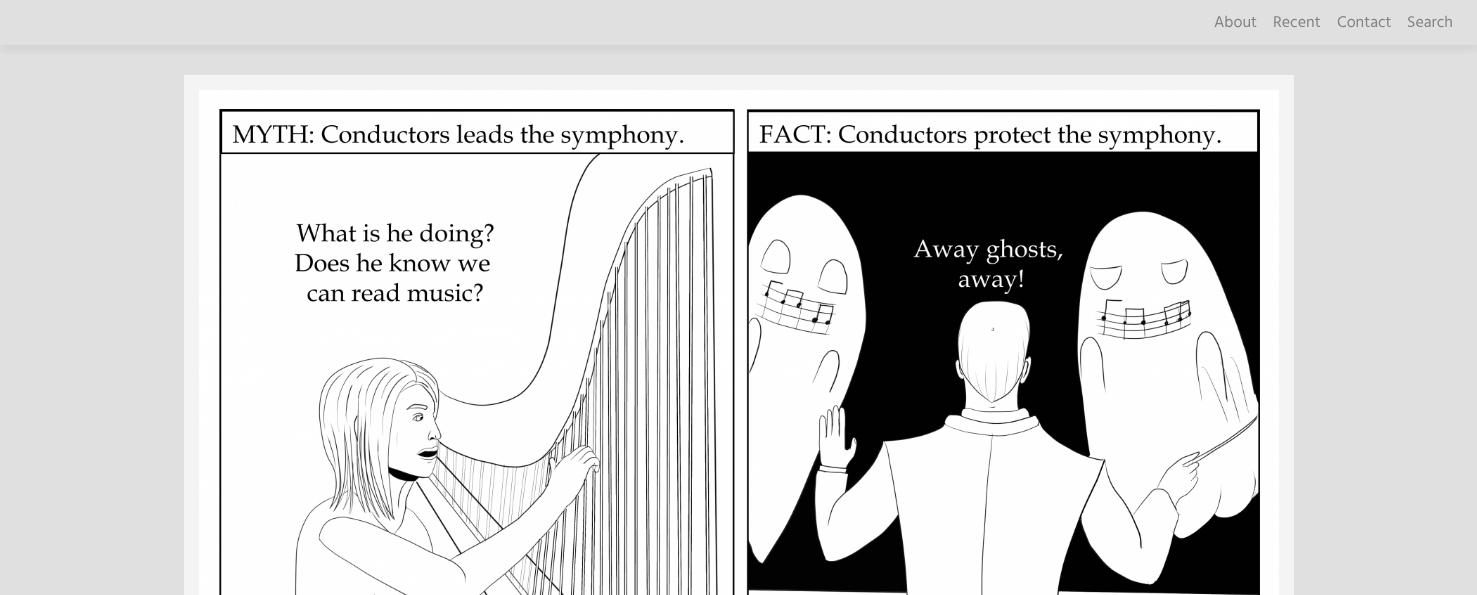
<svg xmlns="http://www.w3.org/2000/svg" width="1477" height="595" viewBox="0 0 1477 595">
  <defs>
    <clipPath id="clip1"><rect x="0" y="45" width="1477" height="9"/></clipPath>
  </defs>
  <rect width="100%" height="100%" fill="rgb(224,224,224)"/>
  <g clip-path="url(#clip1)">
    <rect x="0" y="5" width="1477" height="45" fill="rgba(50,50,50,0.08)" filter="blur(5.5px)"/>
  </g>
  <g font-family="Hind" font-size="16" fill="rgb(130,130,130)">
    <text x="1214" y="27">About</text>
    <text x="1273" y="27">Recent</text>
    <text x="1337" y="27">Contact</text>
    <text x="1407" y="27">Search</text>
  </g>
  <rect x="184" y="75" width="1110" height="520" fill="rgb(244,244,244)"/>
  <image x="199" y="90" width="1080" height="505" href="pic1.png"/>
</svg>
